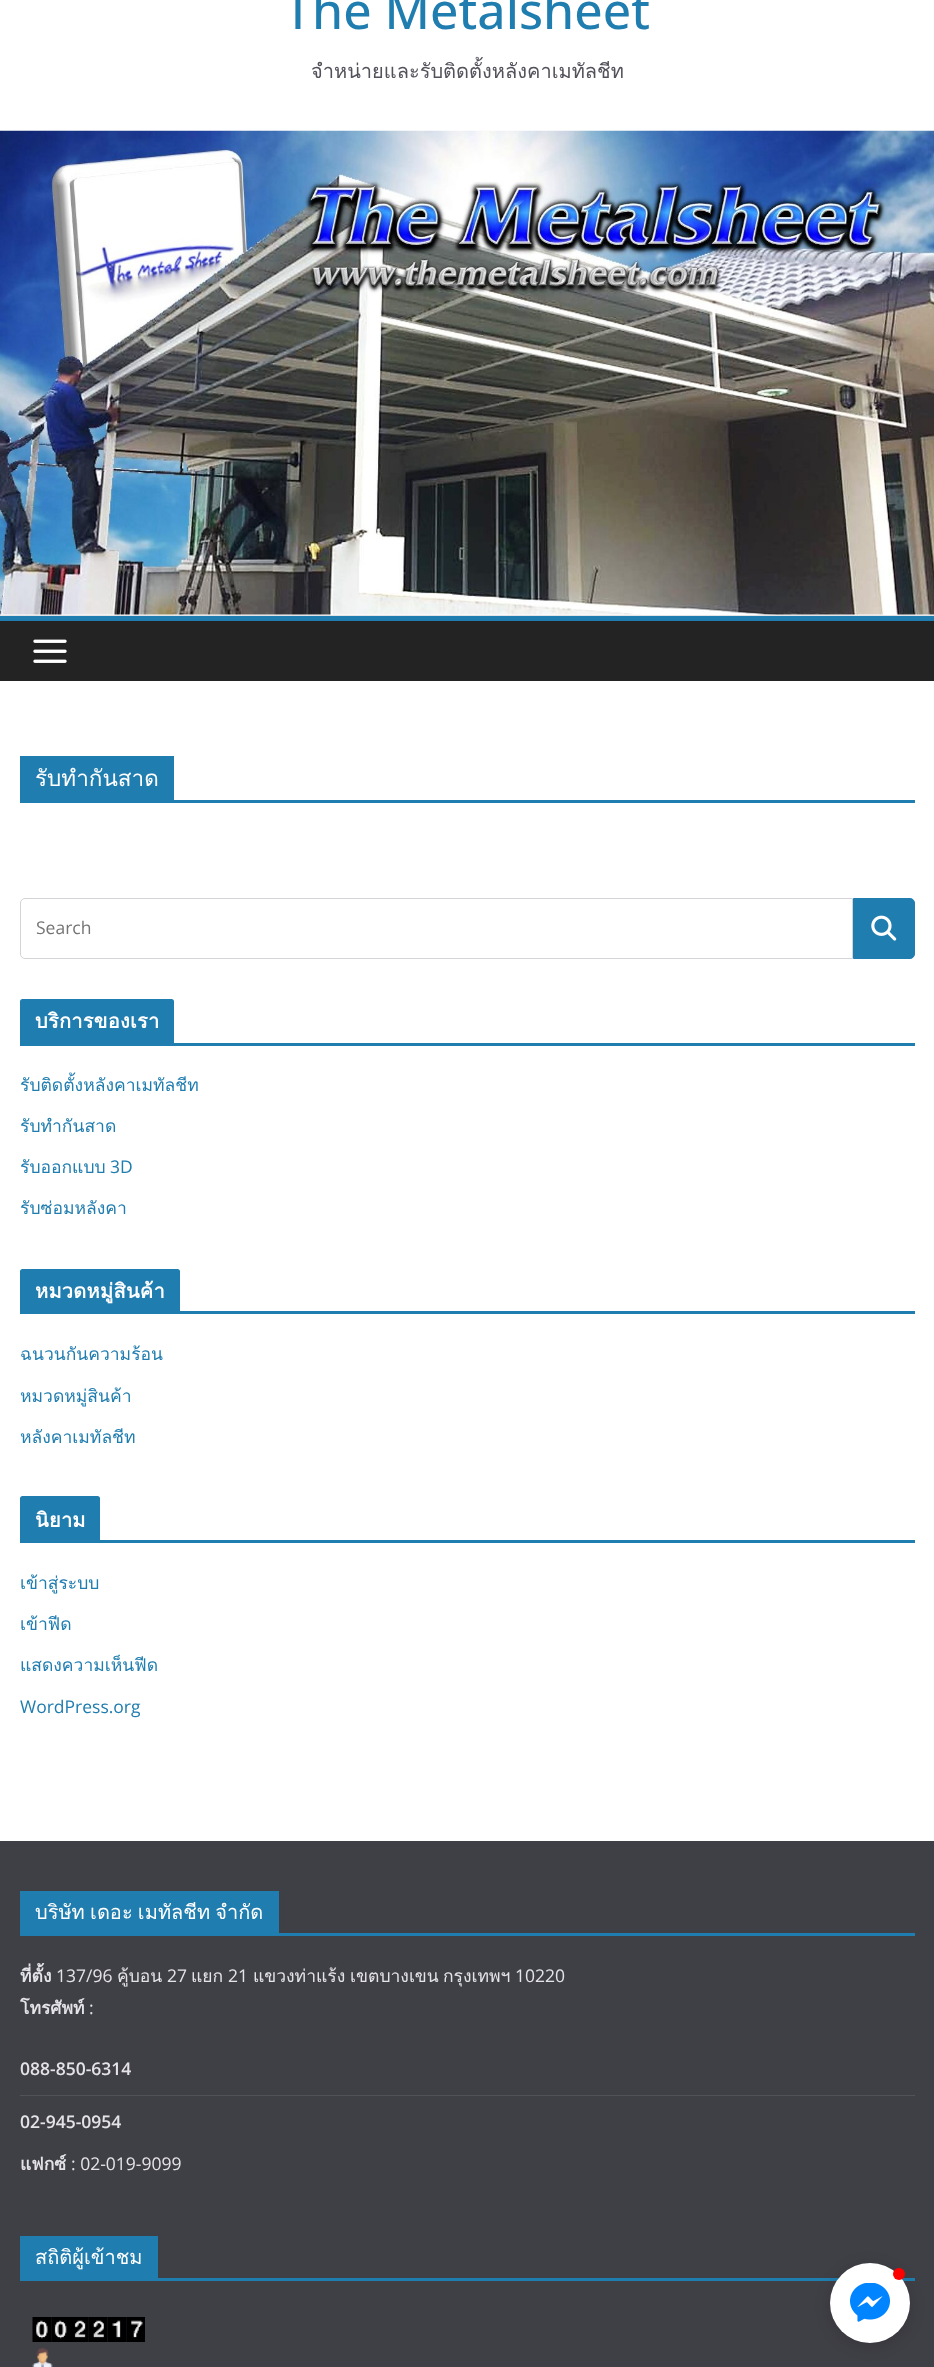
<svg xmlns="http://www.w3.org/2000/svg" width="934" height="2367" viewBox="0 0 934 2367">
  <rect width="100%" height="100%" fill="rgb(255,255,255)"/>
  <text x="284" y="29" font-family="Open Sans" font-size="50" font-weight="500" fill="rgb(32,125,175)">The Metalsheet</text>
  <text x="311" y="78" font-family="Loma" font-size="20" fill="rgb(82,82,91)">จำหน่ายและรับติดตั้งหลังคาเมทัลชีท</text>
  <image x="0" y="130" width="934" height="485" href="pic1.png"/>
  <rect x="0" y="615" width="934" height="1" fill="rgb(228,228,231)"/>
  <rect x="0" y="621" width="934" height="60" fill="rgb(35,35,35)"/>
  <rect x="0" y="616" width="934" height="5" fill="rgb(32,125,175)"/>
  <image x="33" y="639" width="34" height="24" href="pic2.png"/>
  <rect x="20" y="800" width="895" height="3" fill="rgb(32,125,175)"/>
  <rect x="20" y="756" width="154" height="44" fill="rgb(32,125,175)"/>
  <text x="35" y="786" font-family="Loma" font-size="22.5" fill="rgb(255,255,255)">รับทำกันสาด</text>
  <path d="M25 898.5H852.5V958.5H25C22.5 958.5 20.5 956.5 20.5 954V903C20.5 900.5 22.5 898.5 25 898.5Z" fill="none" stroke="rgb(212,212,216)"/>
  <text x="36" y="934" font-family="Open Sans" font-size="17.5" fill="rgb(117,117,117)">Search</text>
  <path d="M853.5 898.5H910C912.5 898.5 914.5 900.5 914.5 903V954C914.5 956.5 912.5 958.5 910 958.5H853.5Z" fill="rgb(32,125,175)" stroke="rgb(32,125,175)"/>
  <image x="871" y="915" width="26" height="26" href="pic3.png"/>
  <rect x="20" y="1043" width="895" height="3" fill="rgb(32,125,175)"/>
  <path d="M22.5 999H171.5C173 999 174 1000 174 1001.5V1043H20V1001.5C20 1000 21 999 22.5 999Z" fill="rgb(32,125,175)"/>
  <text x="35" y="1028" font-family="Loma" font-size="20" font-weight="bold" letter-spacing="0.25" fill="rgb(255,255,255)">บริการของเรา</text>
  <g font-family="Loma" font-size="17.5" fill="rgb(32,125,175)">
    <text x="20" y="1091">รับติดตั้งหลังคาเมทัลชีท</text>
    <text x="20" y="1132">รับทำกันสาด</text>
    <text x="20" y="1173">รับออกแบบ</text>
  </g>
  <text x="110" y="1173" font-family="Open Sans" font-size="17.5" fill="rgb(32,125,175)">3D</text>
  <text x="20" y="1214" font-family="Loma" font-size="17.5" fill="rgb(32,125,175)">รับซ่อมหลังคา</text>
  <rect x="20" y="1311" width="895" height="3" fill="rgb(32,125,175)"/>
  <path d="M22.5 1269H177.5C179 1269 180 1270 180 1271.5V1311H20V1271.5C20 1270 21 1269 22.5 1269Z" fill="rgb(32,125,175)"/>
  <text x="35" y="1298" font-family="Loma" font-size="20" font-weight="bold" letter-spacing="0.25" fill="rgb(255,255,255)">หมวดหมู่สินค้า</text>
  <g font-family="Loma" font-size="17.5" fill="rgb(32,125,175)">
    <text x="20" y="1360">ฉนวนกันความร้อน</text>
    <text x="20" y="1402">หมวดหมู่สินค้า</text>
    <text x="20" y="1443">หลังคาเมทัลชีท</text>
  </g>
  <rect x="20" y="1540" width="895" height="3" fill="rgb(32,125,175)"/>
  <path d="M22.5 1496H97.5C99 1496 100 1497 100 1498.5V1540H20V1498.5C20 1497 21 1496 22.5 1496Z" fill="rgb(32,125,175)"/>
  <text x="35" y="1527" font-family="Loma" font-size="20" font-weight="bold" letter-spacing="0.25" fill="rgb(255,255,255)">นิยาม</text>
  <g font-family="Loma" font-size="17.5" fill="rgb(32,125,175)">
    <text x="20" y="1589">เข้าสู่ระบบ</text>
    <text x="20" y="1630">เข้าฟีด</text>
    <text x="20" y="1671">แสดงความเห็นฟีด</text>
  </g>
  <text x="20" y="1713" font-family="Open Sans" font-size="17.5" fill="rgb(32,125,175)">WordPress.org</text>
  <rect x="0" y="1841" width="934" height="526" fill="rgb(63,63,70)"/>
  <rect x="20" y="1933" width="895" height="3" fill="rgb(32,125,175)"/>
  <rect x="20" y="1891" width="259" height="42" fill="rgb(32,125,175)"/>
  <text x="35" y="1919" word-spacing="-1.5" font-family="Loma" font-size="20" fill="rgb(255,255,255)">บริษัท เดอะ เมทัลชีท จำกัด</text>
  <text x="20" y="1982" font-family="Loma" font-size="17.5" font-weight="bold" fill="rgb(228,228,231)">ที่ตั้ง</text>
  <text x="56" y="1982" font-family="Open Sans" font-size="17.5" fill="rgb(228,228,231)">137/96</text>
  <text x="117" y="1982" font-family="Loma" font-size="17.5" fill="rgb(228,228,231)">คู้บอน</text>
  <text x="167" y="1982" font-family="Open Sans" font-size="17.5" fill="rgb(228,228,231)">27</text>
  <text x="191" y="1982" font-family="Loma" font-size="17.5" fill="rgb(228,228,231)">แยก</text>
  <text x="228" y="1982" font-family="Open Sans" font-size="17.5" fill="rgb(228,228,231)">21</text>
  <g font-family="Loma" font-size="17.5" fill="rgb(228,228,231)">
    <text x="253" y="1982" word-spacing="-1">แขวงท่าแร้ง เขตบางเขน</text>
    <text x="443" y="1982">กรุงเทพฯ</text>
  </g>
  <text x="515" y="1982" font-family="Open Sans" font-size="17.5" fill="rgb(228,228,231)">10220</text>
  <text x="20" y="2014" font-family="Loma" font-size="17.5" font-weight="bold" fill="rgb(228,228,231)">โทรศัพท์</text>
  <text x="89" y="2014" font-family="Open Sans" font-size="17.5" fill="rgb(228,228,231)">:</text>
  <rect x="20" y="2095" width="895" height="1" fill="rgb(82,82,91)"/>
  <g font-family="Open Sans" font-size="17.5" font-weight="600" fill="rgb(228,228,231)">
    <text x="20" y="2075">088-850-6314</text>
    <text x="20" y="2128">02-945-0954</text>
  </g>
  <text x="20" y="2170" font-family="Loma" font-size="17.5" font-weight="bold" fill="rgb(228,228,231)">แฟกซ์</text>
  <text x="71" y="2170" font-family="Open Sans" font-size="17.5" fill="rgb(228,228,231)">: 02-019-9099</text>
  <rect x="20" y="2278" width="895" height="3" fill="rgb(32,125,175)"/>
  <rect x="20" y="2236" width="138" height="42" fill="rgb(32,125,175)"/>
  <text x="35" y="2264" font-family="Loma" font-size="20" fill="rgb(255,255,255)">สถิติผู้เข้าชม</text>
  <image x="32" y="2317" width="20" height="25" href="pic4.png"/>
  <image x="51" y="2317" width="19" height="25" href="pic5.png"/>
  <image x="70" y="2317" width="19" height="25" href="pic6.png"/>
  <image x="88" y="2317" width="20" height="25" href="pic7.png"/>
  <image x="107" y="2317" width="20" height="25" href="pic8.png"/>
  <image x="126" y="2317" width="19" height="25" href="pic9.png"/>
  <image x="32" y="2348" width="21" height="19" href="pic10.png"/>
  <rect x="830" y="2266" width="80" height="80" rx="40" fill="rgba(0,0,0,0.15)" filter="blur(7.5px)"/>
  <circle cx="870" cy="2303" r="40" fill="rgb(255,255,255)"/>
  <circle cx="899" cy="2274" r="6" fill="rgb(255,0,0)"/>
  <image x="850" y="2283" width="40" height="39" href="pic11.png"/>
</svg>
